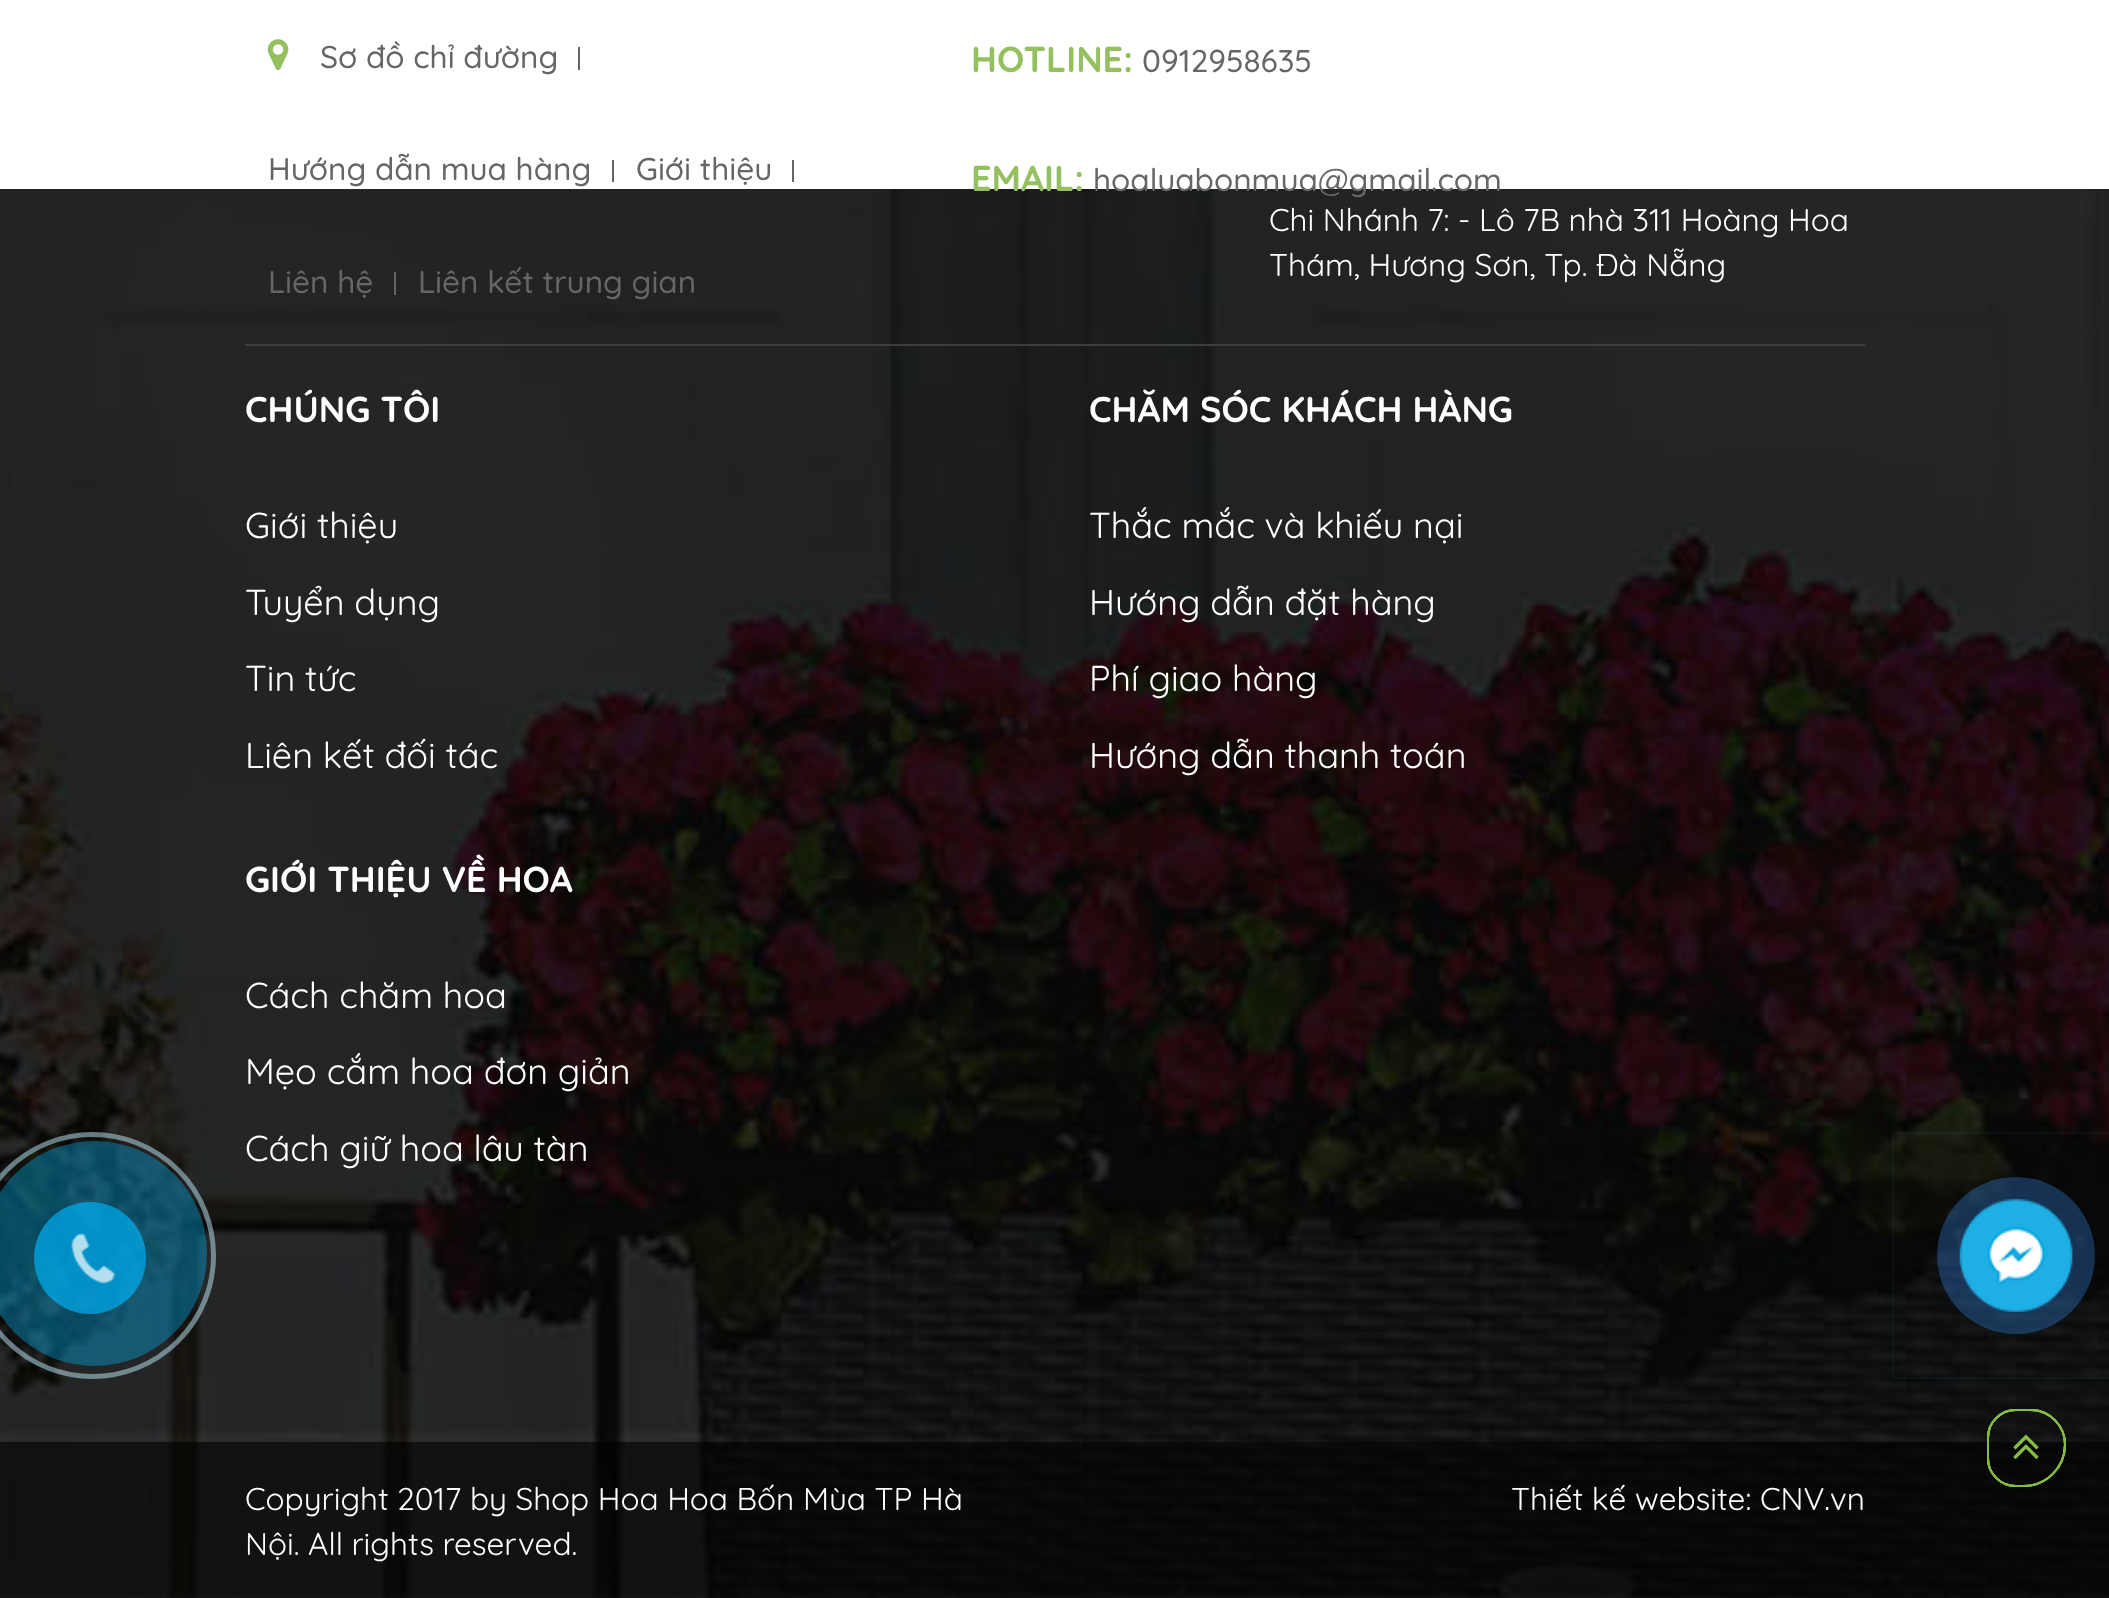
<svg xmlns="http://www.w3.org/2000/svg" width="2109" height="1598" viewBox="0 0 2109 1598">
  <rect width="100%" height="100%" fill="rgb(255,255,255)"/>
  <image x="0" y="189" width="2109" height="1409" href="pic3.png"/>
  <circle cx="92.5" cy="1255.5" r="121" fill="none" stroke="rgba(191,235,252,0.5)" stroke-width="5"/>
  <circle cx="94.5" cy="1253.5" r="112.5" fill="rgba(0,175,242,0.38)"/>
  <circle cx="90" cy="1258" r="56" fill="rgba(0,175,242,0.7)"/>
  <image x="71" y="1233" width="44" height="51" href="pic1.png"/>
  <image x="267" y="39" width="22" height="31" href="pic2.png"/>
  <text x="320" y="68" font-family="Quicksand" font-size="31.5" font-weight="500" fill="rgb(102,102,102)">Sơ đồ chỉ đường</text>
  <rect x="578" y="47" width="2" height="23" fill="rgb(102,102,102)"/>
  <text x="268" y="180" font-family="Quicksand" font-size="31.5" font-weight="500" fill="rgb(102,102,102)">Hướng dẫn mua hàng</text>
  <rect x="612" y="160" width="2" height="22" fill="rgb(102,102,102)"/>
  <text x="636" y="180" font-family="Quicksand" font-size="31.5" font-weight="500" fill="rgb(102,102,102)">Giới thiệu</text>
  <rect x="792" y="160" width="2" height="22" fill="rgb(102,102,102)"/>
  <text x="268" y="293" font-family="Quicksand" font-size="31.5" font-weight="500" fill="rgb(102,102,102)">Liên hệ</text>
  <rect x="394" y="272" width="2" height="23" fill="rgb(102,102,102)"/>
  <text x="418" y="293" font-family="Quicksand" font-size="31.5" font-weight="500" fill="rgb(102,102,102)">Liên kết trung gian</text>
  <text x="971" y="72" font-family="Quicksand" font-size="36" font-weight="bold" fill="rgb(148,192,96)">HOTLINE:</text>
  <text x="1142" y="72" font-family="Quicksand" font-size="31.5" font-weight="500" fill="rgb(102,102,102)">0912958635</text>
  <text x="971" y="191" font-family="Quicksand" font-size="36" font-weight="bold" fill="rgb(148,192,96)">EMAIL:</text>
  <text x="1093" y="191" font-family="Quicksand" font-size="31.5" font-weight="500" fill="rgb(102,102,102)">hoaluabonmua@gmail.com</text>
  <rect x="245" y="344" width="1620" height="2" fill="rgb(61,61,61)"/>
  <g font-family="Quicksand" font-size="31.5" fill="rgb(255,255,255)">
    <text>
      <tspan x="1269" y="231">Chi Nhánh 7: - Lô 7B nhà 311 Hoàng Hoa</tspan>
      <tspan x="1269" y="276">Thám, Hương Sơn, Tp. Đà Nẵng</tspan>
    </text>
  </g>
  <text x="245" y="422" font-family="Quicksand" font-size="36" font-weight="bold" fill="rgb(255,255,255)">CHÚNG TÔI</text>
  <g font-family="Quicksand" font-size="36" fill="rgb(255,255,255)">
    <text x="245" y="538">Giới thiệu</text>
    <text x="245" y="615">Tuyển dụng</text>
    <text x="245" y="691">Tin tức</text>
    <text x="245" y="768">Liên kết đối tác</text>
  </g>
  <text x="1089" y="422" font-family="Quicksand" font-size="36" font-weight="bold" fill="rgb(255,255,255)">CHĂM SÓC KHÁCH HÀNG</text>
  <g font-family="Quicksand" font-size="36" fill="rgb(255,255,255)">
    <text x="1089" y="538">Thắc mắc và khiếu nại</text>
    <text x="1089" y="615">Hướng dẫn đặt hàng</text>
    <text x="1089" y="691">Phí giao hàng</text>
    <text x="1089" y="768">Hướng dẫn thanh toán</text>
  </g>
  <text x="245" y="892" font-family="Quicksand" font-size="36" font-weight="bold" fill="rgb(255,255,255)">GIỚI THIỆU VỀ HOA</text>
  <g font-family="Quicksand" font-size="36" fill="rgb(255,255,255)">
    <text x="245" y="1008">Cách chăm hoa</text>
    <text x="245" y="1084">Mẹo cắm hoa đơn giản</text>
    <text x="245" y="1161">Cách giữ hoa lâu tàn</text>
  </g>
  <rect x="0" y="1442" width="2109" height="156" fill="rgba(0,0,0,0.6)"/>
  <g font-family="Quicksand" font-size="31.5" fill="rgb(255,255,255)">
    <text>
      <tspan x="245" y="1510">Copyright 2017 by Shop Hoa Hoa Bốn Mùa TP Hà</tspan>
      <tspan x="245" y="1555">Nội. All rights reserved.</tspan>
    </text>
    <text x="1511" y="1510">Thiết kế website: CNV.vn</text>
  </g>
  <rect x="1937" y="1177" width="158" height="157" rx="78.5" fill="rgba(54,141,247,0.31)"/>
  <image x="1959" y="1199" width="114" height="113" href="pic4.png"/>
  <rect x="1893" y="1133" width="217" height="245" fill="none" stroke="rgba(61,156,250,0.06)" stroke-width="2"/>
  <path d="M2015.5 1410H2030.5C2049.5 1410 2065 1425.5 2065 1444.5C2065 1467.5 2046.5 1486 2023.5 1486H2015.5C2000.5 1486 1988 1473.5 1988 1458.5V1437.5C1988 1422.5 2000.5 1410 2015.5 1410Z" fill="none" stroke="rgb(134,188,66)" stroke-width="2"/>
  <path d="M2015.5 1410H2030.5C2049.5 1410 2065 1425.5 2065 1444.5C2065 1467.5 2046.5 1486 2023.5 1486H2015.5C2000.5 1486 1988 1473.5 1988 1458.5V1437.5C1988 1422.5 2000.5 1410 2015.5 1410Z" fill="none" stroke="rgb(134,188,66)" stroke-width="2"/>
  <path d="M2015.5 1410H2030.5C2049.5 1410 2065 1425.5 2065 1444.5C2065 1467.5 2046.5 1486 2023.5 1486H2015.5C2000.5 1486 1988 1473.5 1988 1458.5V1437.5C1988 1422.5 2000.5 1410 2015.5 1410Z" fill="none" stroke="rgb(134,188,66)" stroke-width="2"/>
  <path d="M2015.5 1410H2030.5C2049.5 1410 2065 1425.5 2065 1444.5C2065 1467.5 2046.5 1486 2023.5 1486H2015.5C2000.5 1486 1988 1473.5 1988 1458.5V1437.5C1988 1422.5 2000.5 1410 2015.5 1410Z" fill="none" stroke="rgb(134,188,66)" stroke-width="2"/>
  <image x="2013" y="1434" width="26" height="25" href="pic5.png"/>
</svg>
